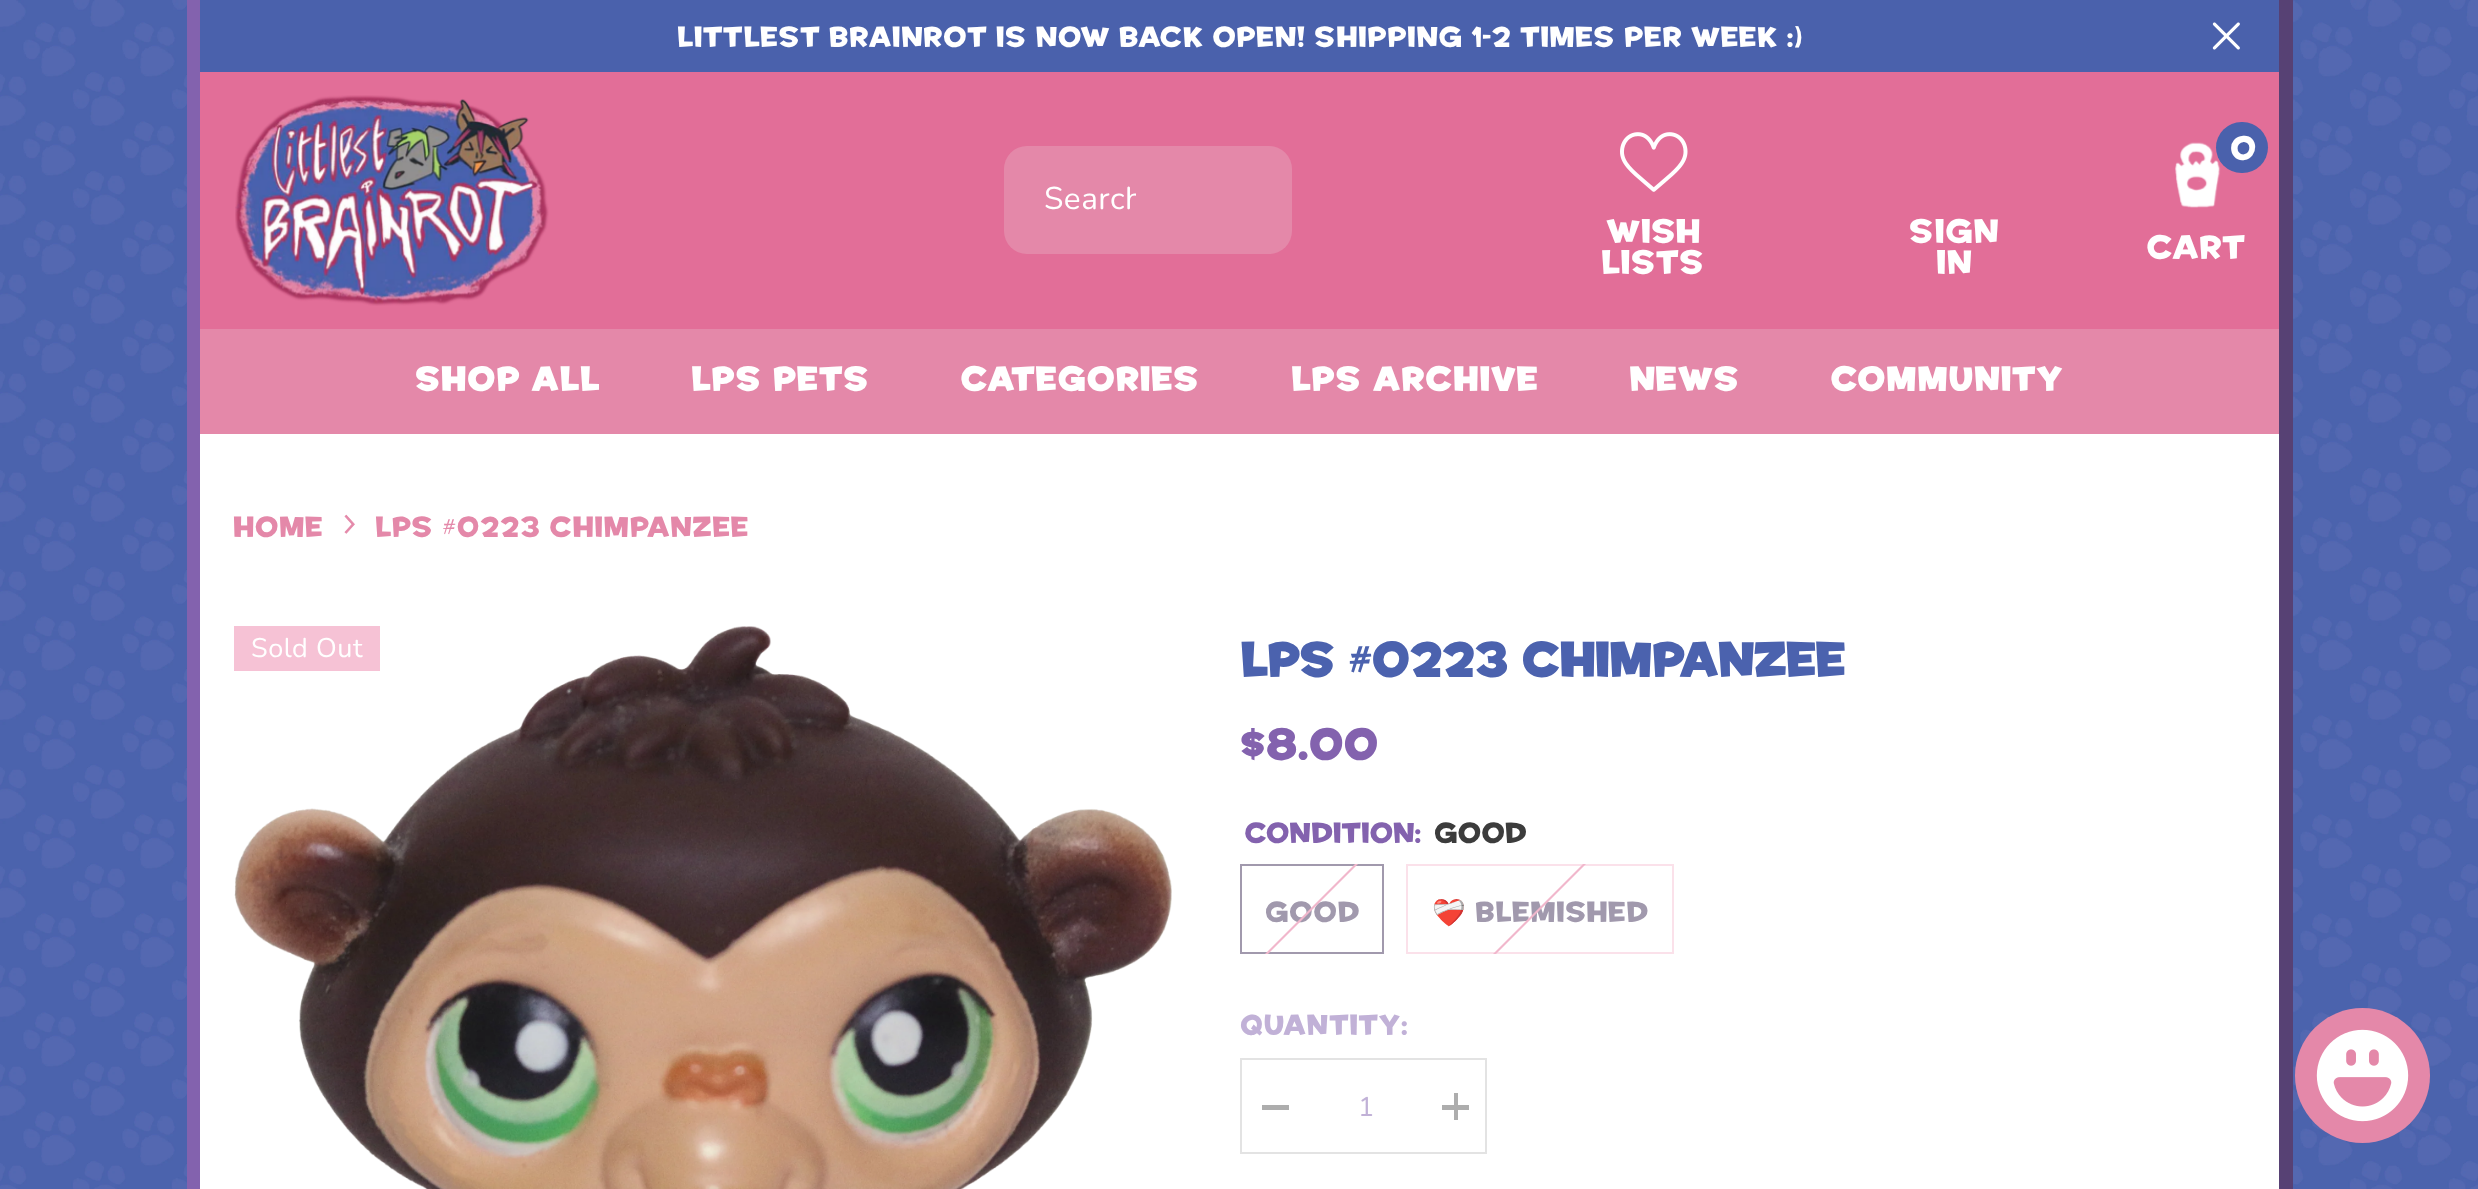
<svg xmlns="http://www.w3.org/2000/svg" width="2478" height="1189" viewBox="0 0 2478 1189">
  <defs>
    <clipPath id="clip1"><rect x="1044" y="178" width="92" height="43"/></clipPath>
    <clipPath id="clip2"><rect x="1240" y="864" width="144" height="90"/></clipPath>
    <clipPath id="clip3"><rect x="1406" y="864" width="268" height="90"/></clipPath>
  </defs>
  <rect width="100%" height="100%" fill="rgb(255,255,255)"/>
  <image x="0" y="0" width="2478" height="1189" href="pic1.png"/>
  <rect x="200" y="434" width="2079" height="755" fill="rgb(255,255,255)"/>
  <rect x="2279" y="0" width="14" height="1189" fill="rgb(87,65,116)"/>
  <rect x="187" y="0" width="13" height="1189" fill="rgb(131,98,174)"/>
  <rect x="200" y="0" width="2079" height="72" fill="rgb(74,97,172)"/>
  <text x="677" y="47" font-family="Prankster" font-size="27" letter-spacing="0.55" fill="rgb(255,255,255)">Littlest Brainrot is now back open! Shipping 1-2 times per week :)</text>
  <image x="2212" y="22" width="28" height="28" href="pic2.png"/>
  <rect x="200" y="72" width="2079" height="257" fill="rgb(226,110,152)"/>
  <image x="235" y="95" width="314" height="211" href="pic3.png"/>
  <rect x="1004" y="146" width="288" height="108" rx="23" fill="rgb(228,136,169)"/>
  <g clip-path="url(#clip1)">
    <text x="1044" y="209" font-family="Nunito" font-size="31.5" letter-spacing="0.5" fill="rgb(255,255,255)">Search</text>
  </g>
  <image x="2175" y="142" width="46" height="66" href="pic4.png"/>
  <rect x="2216" y="122" width="52" height="51" rx="25.5" fill="rgb(74,97,172)"/>
  <text x="2230" y="160" font-family="Prankster" font-size="31.5" fill="rgb(255,255,255)">0</text>
  <text x="2146" y="259" font-family="Prankster" font-size="31.5" letter-spacing="0.5" fill="rgb(255,255,255)">Cart</text>
  <image x="1620" y="132" width="68" height="60" href="pic5.png"/>
  <g font-family="Prankster" font-size="31.5" letter-spacing="0.5" fill="rgb(255,255,255)">
    <text x="1606" y="243">Wish</text>
    <text x="1601" y="274">Lists</text>
    <text x="1909" y="243">Sign</text>
    <text x="1936" y="274">In</text>
  </g>
  <rect x="200" y="329" width="2079" height="105" fill="rgb(228,136,169)"/>
  <g font-family="Prankster" font-size="31.5" font-weight="bold" letter-spacing="1.5" fill="rgb(255,255,255)">
    <text x="415" y="391">SHOP ALL</text>
    <text x="691" y="391">LPS PETS</text>
    <text x="960" y="391">CATEGORIES</text>
    <text x="1291" y="391">LPS ARCHIVE</text>
    <text x="1629" y="391">NEWS</text>
    <text x="1830" y="391">COMMUNITY</text>
  </g>
  <text x="233" y="537" font-family="Prankster" font-size="27" letter-spacing="0.55" fill="rgb(228,136,169)">Home</text>
  <image x="344" y="514" width="11" height="20" href="pic6.png"/>
  <text x="375" y="537" font-family="Prankster" font-size="27" letter-spacing="0.55" fill="rgb(228,136,169)">LPS #0223 Chimpanzee</text>
  <image x="234" y="626" width="938" height="563" href="pic7.png"/>
  <rect x="234" y="626" width="146" height="45" fill="rgb(246,194,213)"/>
  <text x="251" y="657" font-family="Nunito" font-size="27" letter-spacing="0.55" fill="rgb(255,255,255)">Sold Out</text>
  <text x="1240" y="677" font-family="Prankster" font-size="45" font-weight="bold" fill="rgb(75,98,174)">LPS #0223 Chimpanzee</text>
  <text x="1240" y="760" font-family="Prankster" font-size="40.5" font-weight="bold" letter-spacing="1" fill="rgb(131,98,174)">$8.00</text>
  <text x="1244" y="843" font-family="Prankster" font-size="27" fill="rgb(131,98,174)">Condition:</text>
  <text x="1434" y="843" font-family="Prankster" font-size="27" fill="rgb(60,60,60)">Good</text>
  <rect x="1241" y="865" width="142" height="88" fill="none" stroke="rgb(161,153,173)" stroke-width="2"/>
  <text x="1265" y="922" font-family="Prankster" font-size="27" letter-spacing="0.55" fill="rgb(161,153,173)">Good</text>
  <g clip-path="url(#clip2)">
    <path d="M1244 975L1378 841L1380 842L1246 976Z" fill="rgb(241,183,204)"/>
  </g>
  <rect x="1407" y="865" width="266" height="88" fill="none" stroke="rgb(251,225,234)" stroke-width="2"/>
  <text x="1475" y="922" font-family="Prankster" font-size="27" letter-spacing="0.55" fill="rgb(161,153,173)">Blemished</text>
  <g clip-path="url(#clip3)">
    <path d="M1429 1018L1649 798L1651 799L1431 1019Z" fill="rgb(241,183,204)"/>
  </g>
  <text x="1432" y="922" font-family="Noto Color Emoji" font-size="27" letter-spacing="0.55" fill="rgb(161,153,173)">❤️‍🩹</text>
  <text x="1240" y="1035" font-family="Prankster" font-size="27" letter-spacing="0.55" fill="rgb(193,177,215)">Quantity:</text>
  <rect x="1241" y="1059" width="245" height="94" fill="none" stroke="rgb(227,227,227)" stroke-width="2"/>
  <rect x="1262" y="1105" width="27" height="5" fill="rgb(173,173,173)"/>
  <text x="1358" y="1116" font-family="Nunito" font-size="27" letter-spacing="0.55" fill="rgb(193,177,215)">1</text>
  <rect x="1442" y="1105" width="27" height="5" fill="rgb(173,173,173)"/>
  <rect x="1454" y="1093" width="4" height="27" fill="rgb(173,173,173)"/>
  <circle cx="2362.5" cy="1075.5" r="67.5" fill="rgb(228,136,169)"/>
  <image x="2316" y="1029" width="93" height="93" href="pic8.png"/>
</svg>
